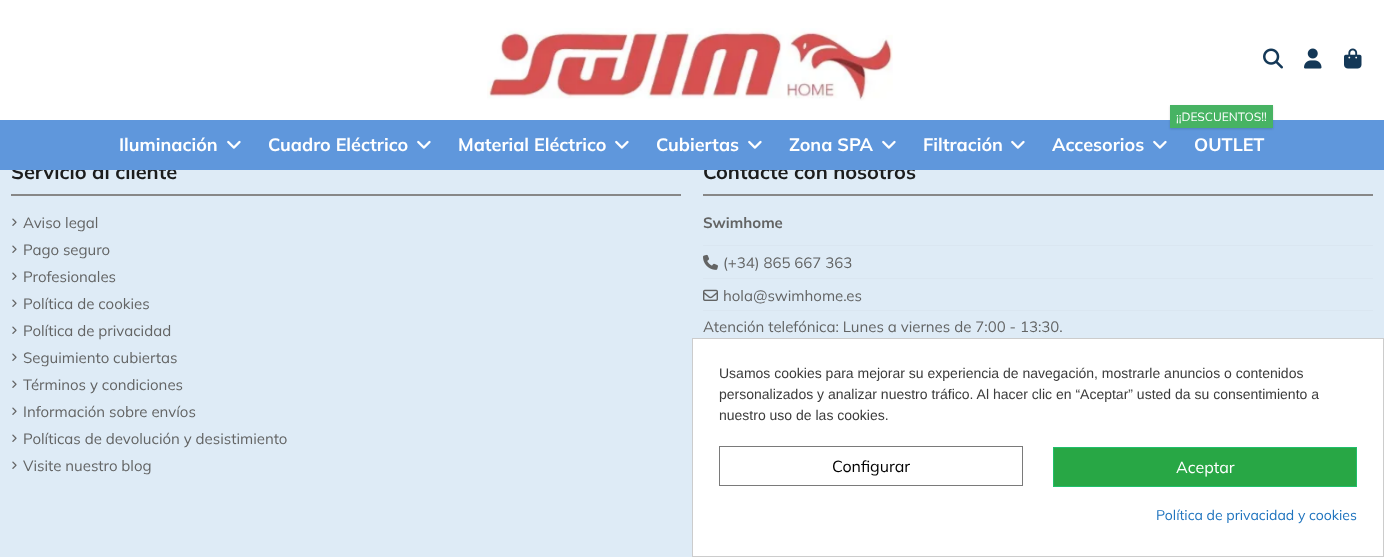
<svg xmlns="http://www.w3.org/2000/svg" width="1384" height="557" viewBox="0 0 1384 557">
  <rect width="100%" height="100%" fill="rgb(222,235,246)"/>
  <rect x="0" y="0" width="1384" height="120" fill="rgb(255,255,255)"/>
  <image x="487" y="28" width="406" height="73" href="pic1.png"/>
  <image x="1263" y="48" width="20" height="21" href="pic2.png"/>
  <image x="1304" y="48" width="18" height="21" href="pic3.png"/>
  <image x="1344" y="48" width="18" height="21" href="pic4.png"/>
  <g font-family="Mulish" font-size="20" font-weight="bold" fill="rgb(28,29,29)">
    <text x="11" y="179">Servicio al cliente</text>
    <text x="703" y="179">Contacte con nosotros</text>
  </g>
  <rect x="0" y="120" width="1384" height="50" fill="rgb(95,151,220)"/>
  <text x="119" y="151" font-family="Mulish" font-size="18" font-weight="bold" fill="rgb(255,255,255)">Iluminación</text>
  <image x="227" y="140" width="14" height="9" href="pic5.png"/>
  <text x="268" y="151" font-family="Mulish" font-size="18" font-weight="bold" fill="rgb(255,255,255)">Cuadro Eléctrico</text>
  <image x="417" y="140" width="14" height="9" href="pic5.png"/>
  <text x="458" y="151" font-family="Mulish" font-size="18" font-weight="bold" fill="rgb(255,255,255)">Material Eléctrico</text>
  <image x="615" y="140" width="14" height="9" href="pic5.png"/>
  <text x="656" y="151" font-family="Mulish" font-size="18" font-weight="bold" fill="rgb(255,255,255)">Cubiertas</text>
  <image x="748" y="140" width="14" height="9" href="pic5.png"/>
  <text x="789" y="151" font-family="Mulish" font-size="18" font-weight="bold" fill="rgb(255,255,255)">Zona SPA</text>
  <image x="882" y="140" width="14" height="9" href="pic5.png"/>
  <text x="923" y="151" font-family="Mulish" font-size="18" font-weight="bold" fill="rgb(255,255,255)">Filtración</text>
  <image x="1011" y="140" width="14" height="9" href="pic5.png"/>
  <text x="1052" y="151" font-family="Mulish" font-size="18" font-weight="bold" fill="rgb(255,255,255)">Accesorios</text>
  <image x="1153" y="140" width="14" height="9" href="pic5.png"/>
  <rect x="1170" y="106" width="103" height="23" fill="rgba(0,0,0,0.15)" filter="blur(1px)"/>
  <rect x="1170" y="105" width="103" height="23" fill="rgb(71,179,99)"/>
  <text x="1176" y="121" font-family="Mulish" font-size="12" fill="rgb(255,255,255)">¡¡DESCUENTOS!!</text>
  <text x="1194" y="151" font-family="Mulish" font-size="18" font-weight="bold" fill="rgb(255,255,255)">OUTLET</text>
  <rect x="11" y="194" width="670" height="2" fill="rgb(135,135,135)"/>
  <image x="12" y="218" width="5" height="8" href="pic6.png"/>
  <text x="23" y="228" font-family="Mulish" font-size="15" fill="rgb(99,100,100)">Aviso legal</text>
  <image x="12" y="245" width="5" height="8" href="pic6.png"/>
  <text x="23" y="255" font-family="Mulish" font-size="15" fill="rgb(99,100,100)">Pago seguro</text>
  <image x="12" y="272" width="5" height="8" href="pic6.png"/>
  <text x="23" y="282" font-family="Mulish" font-size="15" fill="rgb(99,100,100)">Profesionales</text>
  <image x="12" y="299" width="5" height="8" href="pic6.png"/>
  <text x="23" y="309" font-family="Mulish" font-size="15" fill="rgb(99,100,100)">Política de cookies</text>
  <image x="12" y="326" width="5" height="8" href="pic6.png"/>
  <text x="23" y="336" font-family="Mulish" font-size="15" fill="rgb(99,100,100)">Política de privacidad</text>
  <image x="12" y="353" width="5" height="8" href="pic6.png"/>
  <text x="23" y="363" font-family="Mulish" font-size="15" fill="rgb(99,100,100)">Seguimiento cubiertas</text>
  <image x="12" y="380" width="5" height="8" href="pic6.png"/>
  <text x="23" y="390" font-family="Mulish" font-size="15" fill="rgb(99,100,100)">Términos y condiciones</text>
  <image x="12" y="407" width="5" height="8" href="pic6.png"/>
  <text x="23" y="417" font-family="Mulish" font-size="15" fill="rgb(99,100,100)">Información sobre envíos</text>
  <image x="12" y="434" width="5" height="8" href="pic6.png"/>
  <text x="23" y="444" font-family="Mulish" font-size="15" fill="rgb(99,100,100)">Políticas de devolución y desistimiento</text>
  <image x="12" y="461" width="5" height="8" href="pic6.png"/>
  <text x="23" y="471" font-family="Mulish" font-size="15" fill="rgb(99,100,100)">Visite nuestro blog</text>
  <rect x="703" y="194" width="670" height="2" fill="rgb(135,135,135)"/>
  <text x="703" y="228" font-family="Mulish" font-size="15" font-weight="bold" fill="rgb(99,100,100)">Swimhome</text>
  <rect x="703" y="245" width="670" height="1" fill="rgb(218,230,241)"/>
  <image x="703" y="254" width="15" height="16" href="pic7.png"/>
  <text x="723" y="268" font-family="Mulish" font-size="15" fill="rgb(99,100,100)">(+34) 865 667 363</text>
  <rect x="703" y="278" width="670" height="1" fill="rgb(218,230,241)"/>
  <image x="703" y="289" width="15" height="12" href="pic8.png"/>
  <text x="723" y="301" font-family="Mulish" font-size="15" fill="rgb(99,100,100)">hola@swimhome.es</text>
  <rect x="703" y="310" width="670" height="1" fill="rgb(218,230,241)"/>
  <text x="703" y="332" font-family="Mulish" font-size="15" fill="rgb(99,100,100)">Atención telefónica: Lunes a viernes de 7:00 - 13:30.</text>
  <rect x="692.5" y="338.5" width="691" height="218" fill="rgb(255,255,255)" stroke="rgb(204,204,204)"/>
  <g font-family="Liberation Sans" font-size="14" fill="rgb(59,59,59)">
    <text>
      <tspan x="719" y="378">Usamos cookies para mejorar su experiencia de navegación, mostrarle anuncios o contenidos</tspan>
      <tspan x="719" y="399">personalizados y analizar nuestro tráfico. Al hacer clic en “Aceptar” usted da su consentimiento a</tspan>
      <tspan x="719" y="420">nuestro uso de las cookies.</tspan>
    </text>
  </g>
  <rect x="719.5" y="446.5" width="303" height="39" fill="none" stroke="rgb(122,122,122)"/>
  <text x="832" y="472" font-family="Mulish" font-size="16" fill="rgb(0,0,0)">Configurar</text>
  <rect x="1053.5" y="447.5" width="303" height="39" fill="rgb(40,167,69)" stroke="rgb(32,191,107)"/>
  <text x="1176" y="473" font-family="Mulish" font-size="16" fill="rgb(255,255,255)">Aceptar</text>
  <text x="1156" y="520" font-family="Mulish" font-size="14" fill="rgb(30,115,190)">Política de privacidad y cookies</text>
</svg>
